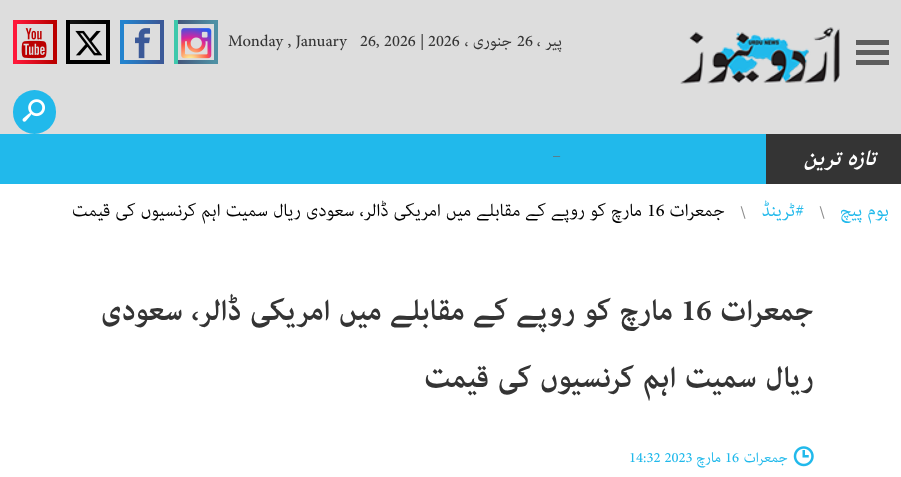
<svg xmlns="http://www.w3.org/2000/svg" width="901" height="477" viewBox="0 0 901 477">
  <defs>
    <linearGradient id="g1" gradientUnits="userSpaceOnUse" x1="178" y1="62" x2="214" y2="62"><stop offset="0" stop-color="rgb(69,87,124)"/><stop offset="1" stop-color="rgb(78,144,164)"/></linearGradient>
    <linearGradient id="g2" gradientUnits="userSpaceOnUse" x1="178" y1="22" x2="214" y2="22"><stop offset="0" stop-color="rgb(69,87,124)"/><stop offset="1" stop-color="rgb(78,144,164)"/></linearGradient>
    <linearGradient id="g3" gradientUnits="userSpaceOnUse" x1="124" y1="62" x2="160" y2="62"><stop offset="0" stop-color="rgb(35,131,206)"/><stop offset="1" stop-color="rgb(59,89,152)"/></linearGradient>
    <linearGradient id="g4" gradientUnits="userSpaceOnUse" x1="124" y1="22" x2="160" y2="22"><stop offset="0" stop-color="rgb(35,131,206)"/><stop offset="1" stop-color="rgb(59,89,152)"/></linearGradient>
    <linearGradient id="g5" gradientUnits="userSpaceOnUse" x1="70" y1="22" x2="106" y2="22"><stop offset="0" stop-color="rgb(21,21,21)"/><stop offset="1" stop-color="rgb(0,0,0)"/></linearGradient>
    <linearGradient id="g6" gradientUnits="userSpaceOnUse" x1="16" y1="62" x2="53" y2="62"><stop offset="0" stop-color="rgb(254,24,58)"/><stop offset="1" stop-color="rgb(187,0,0)"/></linearGradient>
    <linearGradient id="g7" gradientUnits="userSpaceOnUse" x1="16" y1="22" x2="53" y2="22"><stop offset="0" stop-color="rgb(254,24,58)"/><stop offset="1" stop-color="rgb(187,0,0)"/></linearGradient>
  </defs>
  <rect width="100%" height="100%" fill="rgb(255,255,255)"/>
  <rect x="0" y="0" width="901" height="134" fill="rgb(221,221,221)"/>
  <rect x="856" y="40" width="33" height="5" fill="rgb(93,93,93)"/>
  <rect x="856" y="50" width="33" height="5" fill="rgb(93,93,93)"/>
  <rect x="856" y="60" width="33" height="5" fill="rgb(93,93,93)"/>
  <image x="680" y="27" width="160" height="57" href="pic1.png"/>
  <text x="562" y="46" font-family="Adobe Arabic" font-size="22.5" direction="rtl" fill="rgb(52,52,52)">پیر ،</text>
  <text x="517" y="46" font-family="Adobe Arabic" font-size="22.5" fill="rgb(52,52,52)">26</text>
  <text x="512" y="46" font-family="Adobe Arabic" font-size="22.5" direction="rtl" fill="rgb(52,52,52)">جنوری ،</text>
  <g font-family="Adobe Arabic" font-size="22.5" fill="rgb(52,52,52)">
    <text x="428" y="46">2026</text>
    <text x="420" y="46">|</text>
    <text x="228" y="46" xml:space="preserve">Monday , January   26, 2026</text>
  </g>
  <rect x="178" y="60" width="36" height="4" fill="url(#g1)"/>
  <rect x="178" y="20" width="36" height="4" fill="url(#g2)"/>
  <rect x="214" y="20" width="4" height="44" fill="rgb(78,144,164)"/>
  <rect x="174" y="20" width="4" height="44" fill="rgb(62,200,172)"/>
  <image x="181" y="28" width="31" height="31" href="pic2.png"/>
  <rect x="124" y="60" width="36" height="4" fill="url(#g3)"/>
  <rect x="124" y="20" width="36" height="4" fill="url(#g4)"/>
  <rect x="160" y="20" width="4" height="44" fill="rgb(59,89,152)"/>
  <rect x="120" y="20" width="4" height="44" fill="rgb(35,131,206)"/>
  <image x="135" y="28" width="15" height="31" href="pic3.png"/>
  <rect x="70" y="60" width="36" height="4" fill="rgb(0,0,0)"/>
  <rect x="70" y="20" width="36" height="4" fill="url(#g5)"/>
  <rect x="106" y="20" width="4" height="44" fill="rgb(0,0,0)"/>
  <rect x="66" y="20" width="4" height="44" fill="rgb(0,0,0)"/>
  <image x="75" y="30" width="28" height="26" href="pic4.png"/>
  <rect x="16" y="60" width="37" height="4" fill="url(#g6)"/>
  <rect x="16" y="20" width="37" height="4" fill="url(#g7)"/>
  <rect x="53" y="20" width="4" height="44" fill="rgb(187,0,0)"/>
  <rect x="13" y="20" width="4" height="44" fill="rgb(254,24,58)"/>
  <image x="21" y="28" width="26" height="31" href="pic5.png"/>
  <rect x="13" y="90" width="43" height="44" rx="21.5" fill="rgb(33,185,235)"/>
  <image x="22" y="99" width="23" height="23" href="pic6.png"/>
  <rect x="0" y="134" width="13" height="50" fill="rgb(33,185,235)"/>
  <rect x="766" y="134" width="135" height="50" fill="rgb(52,52,52)"/>
  <rect x="13" y="134" width="753" height="50" fill="rgb(33,185,235)"/>
  <text x="876" y="165" font-family="Adobe Arabic" font-size="30" font-weight="bold" font-style="italic" direction="rtl" fill="rgb(255,255,255)">تازہ ترین</text>
  <text x="553" y="155" font-family="Adobe Arabic" font-size="20" fill="rgb(108,108,108)">_</text>
  <text x="889" y="216" font-family="Adobe Arabic" font-size="25" direction="rtl" fill="rgb(33,185,235)">ہوم پیچ</text>
  <text x="819" y="218" font-family="Adobe Arabic" font-size="25" fill="rgb(138,138,138)">\</text>
  <text x="804" y="216" font-family="Adobe Arabic" font-size="25" direction="rtl" fill="rgb(33,185,235)">#ٹرینڈ</text>
  <text x="740" y="218" font-family="Adobe Arabic" font-size="25" fill="rgb(138,138,138)">\</text>
  <text x="725" y="216" font-family="Adobe Arabic" font-size="25" direction="rtl" fill="rgb(0,0,0)">جمعرات</text>
  <text x="647" y="216" font-family="Adobe Arabic" font-size="25" fill="rgb(0,0,0)">16</text>
  <text x="642" y="216" font-family="Adobe Arabic" font-size="25" direction="rtl" fill="rgb(0,0,0)">مارچ کو روپے کے مقابلے میں امریکی ڈالر، سعودی ریال سمیت اہم کرنسیوں کی قیمت</text>
  <text x="814" y="320" font-family="Adobe Arabic" font-size="42" font-weight="bold" direction="rtl" fill="rgb(52,52,52)">جمعرات</text>
  <text x="681" y="320" font-family="Adobe Arabic" font-size="42" font-weight="bold" fill="rgb(52,52,52)">16</text>
  <g font-family="Adobe Arabic" font-size="42" font-weight="bold" direction="rtl" fill="rgb(52,52,52)">
    <text x="673" y="320">مارچ کو روپے کے مقابلے میں امریکی ڈالر، سعودی</text>
    <text x="814" y="387">ریال سمیت اہم کرنسیوں کی قیمت</text>
  </g>
  <image x="793" y="446" width="21" height="21" href="pic7.png"/>
  <text x="788" y="462" font-family="Adobe Arabic" font-size="20" direction="rtl" fill="rgb(33,185,235)">جمعرات</text>
  <text x="725" y="462" font-family="Adobe Arabic" font-size="20" fill="rgb(33,185,235)">16</text>
  <text x="721" y="462" font-family="Adobe Arabic" font-size="20" direction="rtl" fill="rgb(33,185,235)">مارچ</text>
  <text x="629" y="462" font-family="Adobe Arabic" font-size="20" fill="rgb(33,185,235)">14:32 2023</text>
</svg>
